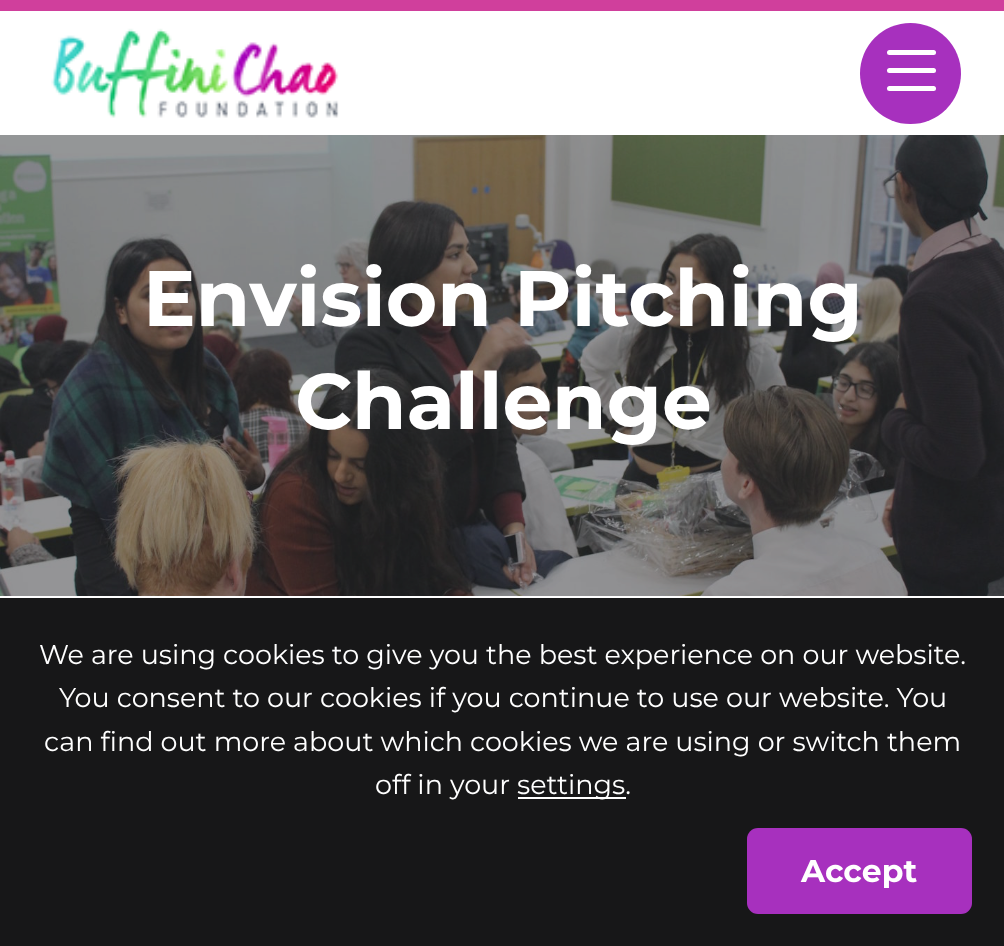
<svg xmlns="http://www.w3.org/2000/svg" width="1004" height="946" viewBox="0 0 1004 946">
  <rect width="100%" height="100%" fill="rgb(255,255,255)"/>
  <rect x="0" y="0" width="1004" height="11" fill="rgb(208,63,156)"/>
  <image x="51" y="28" width="288" height="90" href="pic1.png"/>
  <circle cx="910.5" cy="73.5" r="50.5" fill="rgb(167,48,190)"/>
  <rect x="887" y="68" width="49" height="5" rx="2.5" fill="rgb(255,255,255)"/>
  <rect x="887" y="50" width="49" height="5" rx="2.5" fill="rgb(255,255,255)"/>
  <rect x="887" y="86" width="49" height="5" rx="2.5" fill="rgb(255,255,255)"/>
  <image x="0" y="135" width="1004" height="461" href="pic2.png"/>
  <g font-family="Montserrat" font-size="78.75" font-weight="bold" fill="rgb(255,255,255)">
    <text x="143" y="326">Envision Pitching</text>
    <text x="295" y="429">Challenge</text>
  </g>
  <rect x="0" y="598" width="1004" height="348" fill="rgb(23,23,24)"/>
  <g font-family="Montserrat" font-size="27" fill="rgb(255,255,255)">
    <text x="39" y="664">We are using cookies to give you the best experience on our website.</text>
    <text x="59" y="707">You consent to our cookies if you continue to use our website. You</text>
    <text x="44" y="751">can find out more about which cookies we are using or switch them</text>
    <text x="375" y="794">off in your</text>
  </g>
  <rect x="518" y="797" width="108" height="2" fill="rgb(255,255,255)"/>
  <text x="517" y="794" font-family="Montserrat" font-size="27" fill="rgb(255,255,255)">settings.</text>
  <rect x="747" y="828" width="225" height="86" rx="11" fill="rgb(167,48,190)"/>
  <text x="801" y="882" font-family="Montserrat" font-size="31.5" font-weight="bold" fill="rgb(255,255,255)">Accept</text>
</svg>
